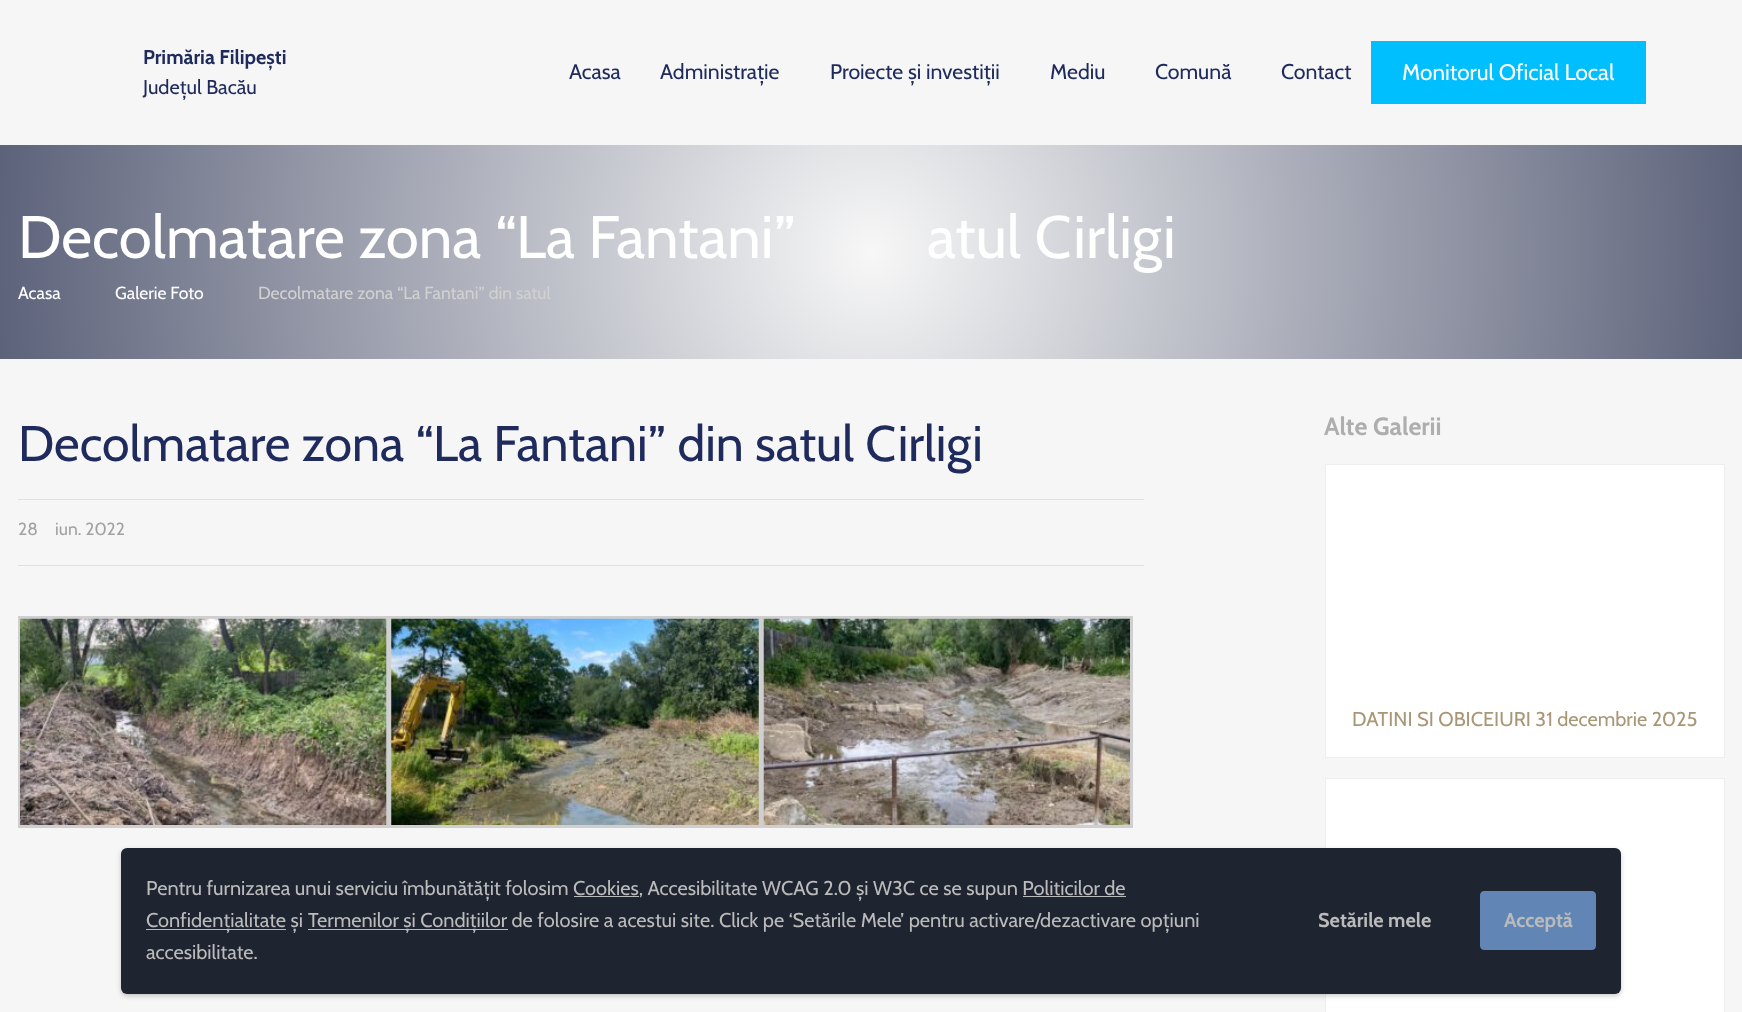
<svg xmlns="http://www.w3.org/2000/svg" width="1742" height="1012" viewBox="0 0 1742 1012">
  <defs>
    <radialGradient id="g1" gradientUnits="userSpaceOnUse" cx="871" cy="252" r="878"><stop offset="0" stop-color="rgb(247,247,247)"/><stop offset="1" stop-color="rgb(92,98,122)"/></radialGradient>
  </defs>
  <rect width="100%" height="100%" fill="rgb(246,246,246)"/>
  <text x="143" y="64" font-family="Cabin" font-size="20" font-weight="bold" fill="rgb(32,43,93)">Primăria Filipești</text>
  <text x="143" y="94" font-family="Cabin" font-size="20" fill="rgb(32,43,93)">Județul Bacău</text>
  <g font-family="Cabin" font-size="21.25" fill="rgb(32,43,93)">
    <text x="569" y="79">Acasa</text>
    <text x="660" y="79">Administrație</text>
    <text x="830" y="79">Proiecte și investiții</text>
    <text x="1050" y="79">Mediu</text>
    <text x="1155" y="79">Comună</text>
    <text x="1281" y="79">Contact</text>
  </g>
  <rect x="1371" y="41" width="275" height="63" fill="rgb(0,191,255)"/>
  <text x="1402" y="80" font-family="Cabin" font-size="22.5" fill="rgb(255,255,255)">Monitorul Oficial Local</text>
  <rect x="0" y="145" width="1742" height="214" fill="url(#g1)"/>
  <g font-family="Cabin" font-size="60" fill="rgb(255,255,255)">
    <text x="18" y="258">Decolmatare zona “La Fantani”</text>
    <text x="927" y="258">atul Cirligi</text>
  </g>
  <g font-family="Cabin" font-size="17.5" fill="rgb(255,255,255)">
    <text x="18" y="299">Acasa</text>
    <text x="115" y="299">Galerie Foto</text>
  </g>
  <text x="258" y="299" font-family="Cabin" font-size="17.5" fill="rgb(209,209,209)">Decolmatare zona “La Fantani” din satul</text>
  <text x="18" y="461" font-family="Cabin" font-size="50" fill="rgb(32,43,93)">Decolmatare zona “La Fantani” din satul Cirligi</text>
  <rect x="18" y="499" width="1126" height="1" fill="rgb(224,224,224)"/>
  <rect x="18" y="565" width="1126" height="1" fill="rgb(224,224,224)"/>
  <g font-family="Cabin" font-size="17.5" fill="rgb(162,162,162)">
    <text x="18" y="535">28</text>
    <text x="55" y="535">iun. 2022</text>
  </g>
  <rect x="19.5" y="617.5" width="368" height="209" fill="none" stroke="rgb(207,207,207)" stroke-width="3"/>
  <image x="20" y="618" width="367" height="207" href="pic1.png"/>
  <rect x="390.5" y="617.5" width="369" height="209" fill="none" stroke="rgb(207,207,207)" stroke-width="3"/>
  <image x="391" y="618" width="368" height="207" href="pic2.png"/>
  <rect x="762.5" y="617.5" width="369" height="209" fill="none" stroke="rgb(207,207,207)" stroke-width="3"/>
  <image x="763" y="618" width="367" height="207" href="pic3.png"/>
  <text x="1324" y="435" font-family="Cabin" font-size="25" font-weight="bold" fill="rgb(174,174,174)">Alte Galerii</text>
  <rect x="1325.5" y="464.5" width="399" height="293" fill="rgb(255,255,255)" stroke="rgb(238,238,238)"/>
  <text x="1352" y="726" font-family="Cabin" font-size="20" fill="rgb(168,150,117)">DATINI SI OBICEIURI 31 decembrie 2025</text>
  <rect x="1325.5" y="778.5" width="399" height="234" fill="rgb(255,255,255)" stroke="rgb(238,238,238)"/>
  <rect x="121" y="850" width="1500" height="146" rx="6" fill="rgba(0,0,0,0.2)" filter="blur(2.5px)"/>
  <rect x="121" y="848" width="1500" height="146" rx="6" fill="rgb(30,36,48)"/>
  <text x="146" y="895" font-family="Cabin" font-size="20" fill="rgb(187,187,187)">Pentru furnizarea unui serviciu îmbunătățit folosim Cookies, Accesibilitate WCAG 2.0 și W3C ce se supun Politicilor de</text>
  <rect x="574" y="896" width="65" height="1" fill="rgb(187,187,187)"/>
  <rect x="146" y="929" width="140" height="1" fill="rgb(187,187,187)"/>
  <text x="146" y="927" font-family="Cabin" font-size="20" fill="rgb(187,187,187)">Confidențialitate și</text>
  <rect x="1023" y="896" width="103" height="1" fill="rgb(187,187,187)"/>
  <rect x="308" y="929" width="200" height="1" fill="rgb(187,187,187)"/>
  <g font-family="Cabin" font-size="20" fill="rgb(187,187,187)">
    <text x="308" y="927">Termenilor și Condițiilor de folosire a acestui site. Click pe ‘Setările Mele’ pentru activare/dezactivare opțiuni</text>
    <text x="146" y="959">accesibilitate.</text>
  </g>
  <text x="1318" y="927" font-family="Cabin" font-size="20" font-weight="bold" fill="rgb(187,187,187)">Setările mele</text>
  <rect x="1480.5" y="891.5" width="115" height="58" rx="3.5" fill="rgb(97,134,182)" stroke="rgb(97,134,182)"/>
  <text x="1504" y="927" font-family="Cabin" font-size="20" font-weight="bold" fill="rgb(187,187,187)">Acceptă</text>
</svg>
